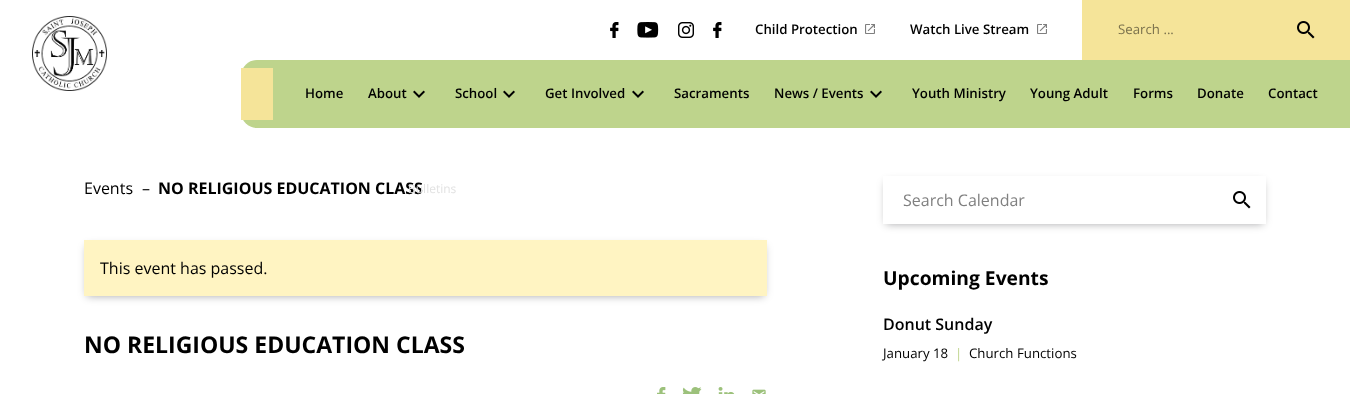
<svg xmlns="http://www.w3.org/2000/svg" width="1350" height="394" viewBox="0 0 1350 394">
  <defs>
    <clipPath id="clip1"><path d="M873 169H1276V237H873ZM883 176H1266V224H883Z" clip-rule="evenodd"/></clipPath>
  </defs>
  <rect width="100%" height="100%" fill="rgb(255,255,255)"/>
  <image x="32" y="16" width="75" height="75" href="pic1.png"/>
  <image x="610" y="22" width="9" height="16" href="pic2.png"/>
  <image x="637" y="22" width="22" height="16" href="pic3.png"/>
  <image x="678" y="22" width="16" height="16" href="pic4.png"/>
  <image x="713" y="22" width="9" height="16" href="pic2.png"/>
  <text x="755" y="34" font-family="Open Sans" font-size="13.25" font-weight="600" fill="rgb(0,0,0)">Child Protection</text>
  <image x="865" y="24" width="10" height="10" href="pic5.png"/>
  <text x="910" y="34" font-family="Open Sans" font-size="13.25" font-weight="600" fill="rgb(0,0,0)">Watch Live Stream</text>
  <image x="1037" y="24" width="10" height="10" href="pic5.png"/>
  <rect x="1082" y="0" width="268" height="60" fill="rgb(245,228,153)"/>
  <text x="1118" y="34" font-family="Open Sans" font-size="13.25" fill="rgb(123,114,77)">Search ...</text>
  <image x="1297" y="21" width="18" height="18" href="pic6.png"/>
  <rect x="241" y="60" width="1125" height="68" rx="16" fill="rgb(190,212,140)"/>
  <rect x="241" y="68" width="32" height="52" fill="rgb(245,228,153)"/>
  <g font-family="Open Sans" font-size="13.25" font-weight="600" fill="rgb(0,0,0)">
    <text x="305" y="98">Home</text>
    <text x="368" y="98">About</text>
  </g>
  <image x="413" y="90" width="12" height="8" href="pic7.png"/>
  <text x="158" y="194" font-family="Open Sans" font-size="16" font-weight="bold" fill="rgb(0,0,0)">NO RELIGIOUS EDUCATION CLASS</text>
  <text x="408" y="193" font-family="Open Sans" font-size="12" fill="rgb(226,226,226)">Bulletins</text>
  <text x="455" y="98" font-family="Open Sans" font-size="13.25" font-weight="600" fill="rgb(0,0,0)">School</text>
  <image x="503" y="90" width="12" height="8" href="pic7.png"/>
  <text x="545" y="98" font-family="Open Sans" font-size="13.25" font-weight="600" fill="rgb(0,0,0)">Get Involved</text>
  <image x="632" y="90" width="12" height="8" href="pic7.png"/>
  <g font-family="Open Sans" font-size="13.25" font-weight="600" fill="rgb(0,0,0)">
    <text x="674" y="98">Sacraments</text>
    <text x="774" y="98">News / Events</text>
  </g>
  <image x="870" y="90" width="12" height="8" href="pic7.png"/>
  <g font-family="Open Sans" font-size="13.25" font-weight="600" fill="rgb(0,0,0)">
    <text x="912" y="98">Youth Ministry</text>
    <text x="1030" y="98">Young Adult</text>
    <text x="1133" y="98">Forms</text>
    <text x="1197" y="98">Donate</text>
    <text x="1268" y="98">Contact</text>
  </g>
  <g font-family="Open Sans" font-size="16" fill="rgb(0,0,0)">
    <text x="84" y="194">Events</text>
    <text x="142" y="194">–</text>
  </g>
  <rect x="87" y="246" width="677" height="50" fill="rgba(3,4,7,0.34)" filter="blur(4px)"/>
  <rect x="84" y="240" width="683" height="56" fill="rgb(255,244,194)"/>
  <text x="100" y="274" font-family="Open Sans" font-size="16" fill="rgb(0,0,0)">This event has passed.</text>
  <text x="84" y="353" font-family="Open Sans" font-size="23" font-weight="bold" fill="rgb(0,0,0)">NO RELIGIOUS EDUCATION CLASS</text>
  <image x="657" y="387" width="9" height="7" href="pic8.png"/>
  <image x="682" y="387" width="20" height="7" href="pic9.png"/>
  <image x="718" y="387" width="17" height="7" href="pic10.png"/>
  <image x="752" y="389" width="14" height="5" href="pic11.png"/>
  <g clip-path="url(#clip1)">
    <rect x="886" y="182" width="377" height="42" fill="rgba(3,4,7,0.34)" filter="blur(4px)"/>
  </g>
  <text x="903" y="206" font-family="Open Sans" font-size="16" fill="rgb(128,128,128)">Search Calendar</text>
  <image x="1233" y="191" width="18" height="18" href="pic12.png"/>
  <text x="883" y="285" font-family="Open Sans" font-size="19.25" font-weight="bold" fill="rgb(0,0,0)">Upcoming Events</text>
  <text x="883" y="330" font-family="Open Sans" font-size="16" font-weight="600" fill="rgb(0,0,0)">Donut Sunday</text>
  <text x="883" y="358" font-family="Open Sans" font-size="13.25" fill="rgb(0,0,0)">January 18</text>
  <text x="955" y="358" font-family="Open Sans" font-size="13.25" fill="rgb(190,212,140)">|</text>
  <text x="969" y="358" font-family="Open Sans" font-size="13.25" fill="rgb(0,0,0)">Church Functions</text>
</svg>
